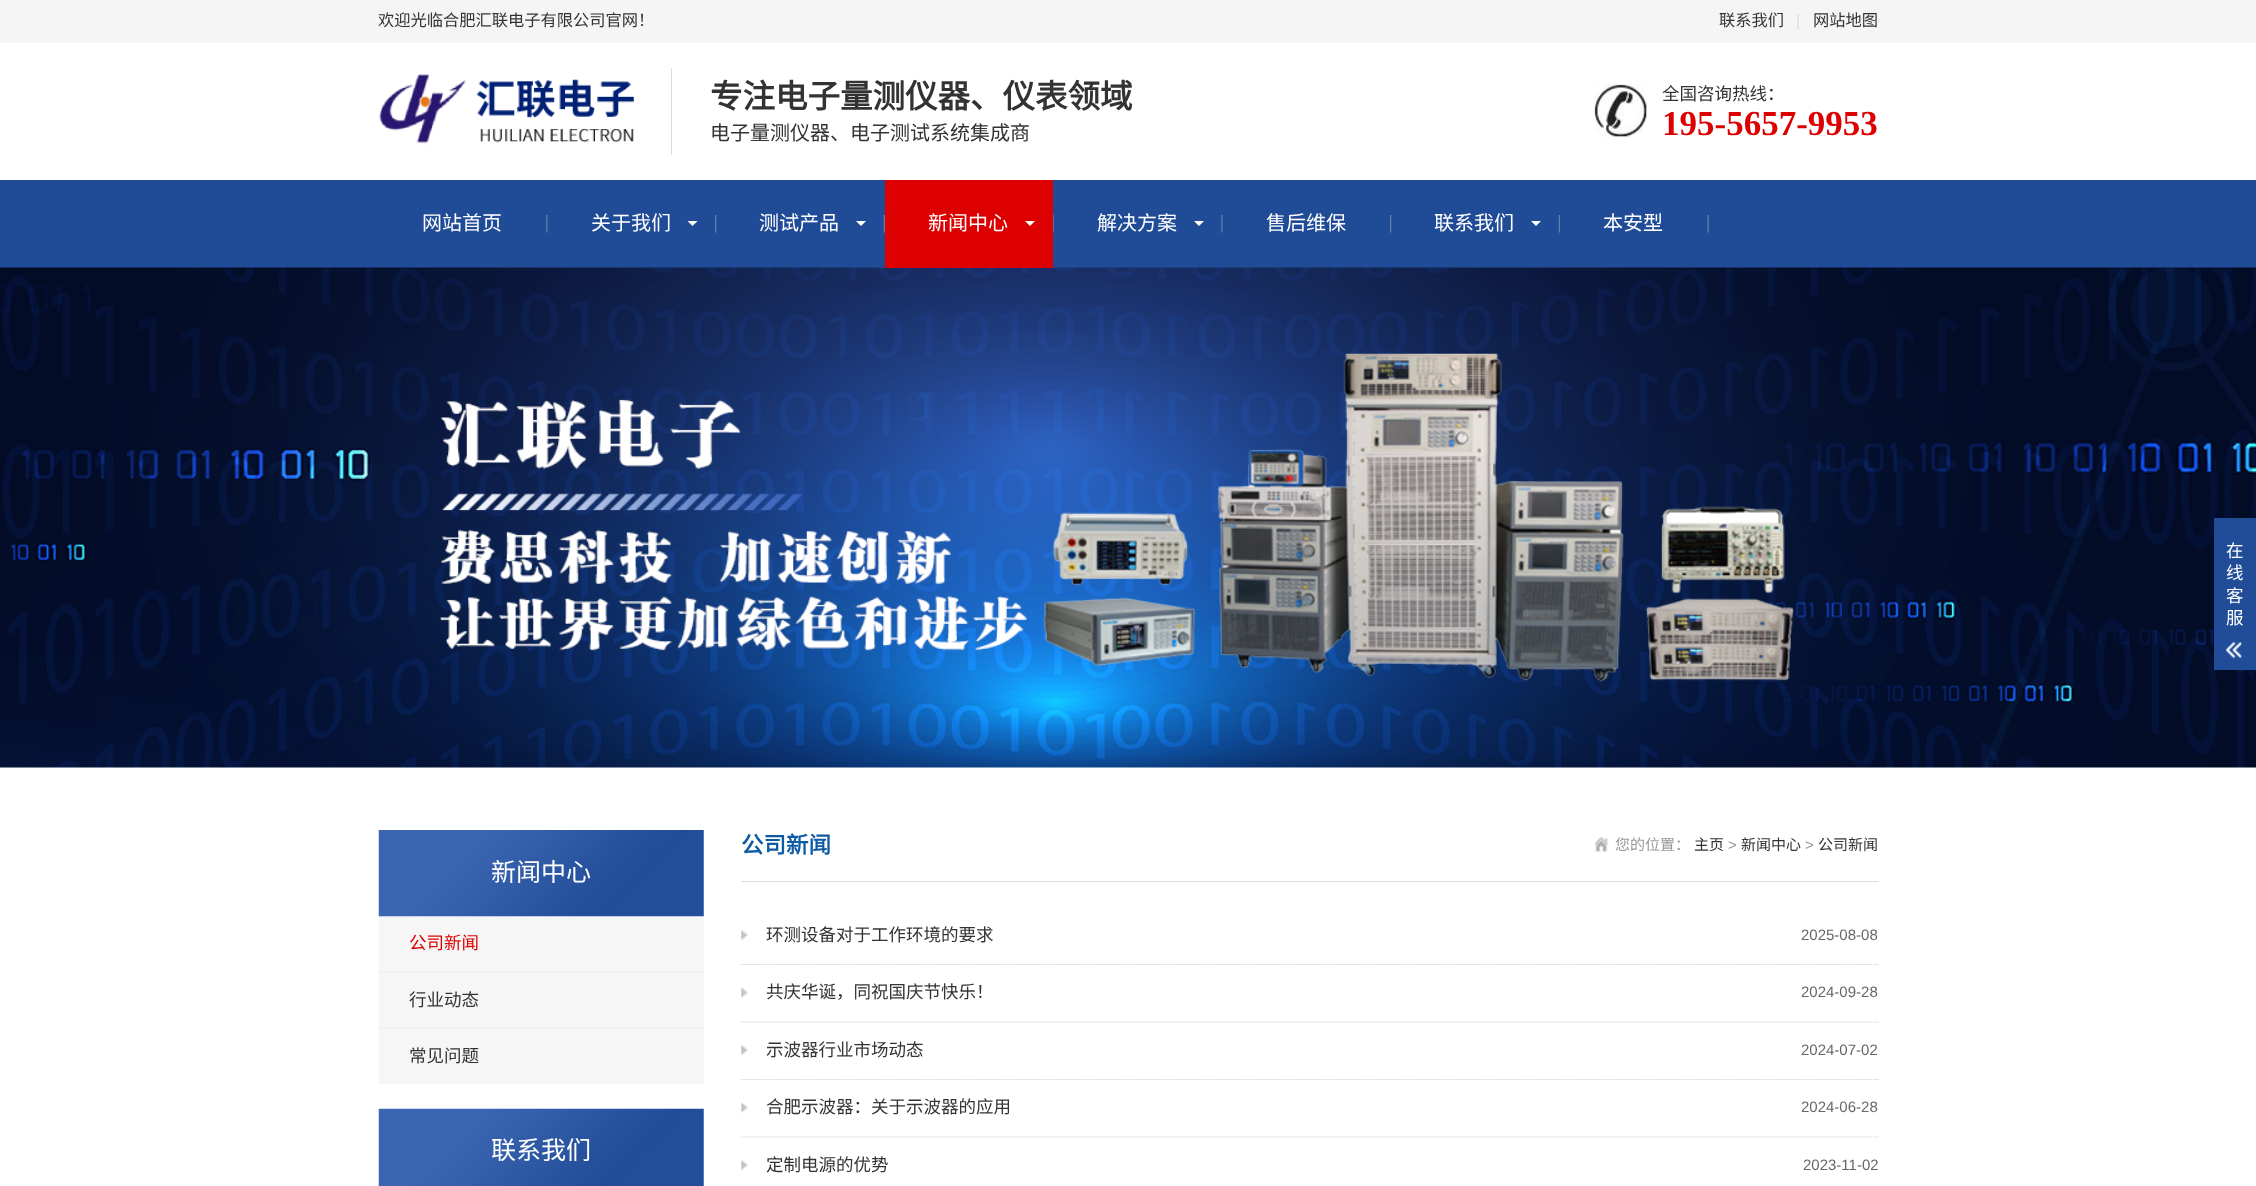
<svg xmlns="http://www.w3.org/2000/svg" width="2256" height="1186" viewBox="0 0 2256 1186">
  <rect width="100%" height="100%" fill="rgb(255,255,255)"/>
  <rect x="0" y="0" width="2256" height="43" fill="rgb(245,245,245)"/>
  <g font-family="Noto Sans CJK SC" font-size="16.25" fill="rgb(51,51,51)">
    <text x="378" y="26">欢迎光临合肥汇联电子有限公司官网！</text>
    <text x="1719" y="26">联系我们</text>
  </g>
  <text x="1796" y="26" font-family="Liberation Sans" font-size="16.25" fill="rgb(221,221,221)">|</text>
  <text x="1813" y="26" font-family="Noto Sans CJK SC" font-size="16.25" fill="rgb(51,51,51)">网站地图</text>
  <image x="379" y="74" width="255" height="74" href="pic1.png"/>
  <rect x="671" y="68" width="1" height="87" fill="rgb(221,221,221)"/>
  <text x="710" y="108" font-family="Noto Sans CJK SC" font-size="32.5" font-weight="bold" fill="rgb(51,51,51)">专注电子量测仪器、仪表领域</text>
  <text x="710" y="140" font-family="Noto Sans CJK SC" font-size="20" fill="rgb(51,51,51)">电子量测仪器、电子测试系统集成商</text>
  <image x="1594" y="84" width="53" height="55" href="pic2.png"/>
  <text x="1662" y="100" font-family="Noto Sans CJK SC" font-size="17.5" fill="rgb(51,51,51)">全国咨询热线：</text>
  <text x="1662" y="135" font-family="Liberation Serif" font-size="35" font-weight="bold" fill="rgb(221,0,0)">195-5657-9953</text>
  <rect x="0" y="180" width="2256" height="88" fill="rgb(32,76,151)"/>
  <image x="546" y="215" width="2" height="18" href="pic3.png"/>
  <text x="422" y="230" font-family="Noto Sans CJK SC" font-size="20" fill="rgb(255,255,255)">网站首页</text>
  <image x="715" y="215" width="2" height="18" href="pic4.png"/>
  <text x="591" y="230" font-family="Noto Sans CJK SC" font-size="20" fill="rgb(255,255,255)">关于我们</text>
  <path d="M687.5 221H697.5L692.5 226Z" fill="rgb(255,255,255)"/>
  <image x="883" y="215" width="2" height="18" href="pic5.png"/>
  <text x="759" y="230" font-family="Noto Sans CJK SC" font-size="20" fill="rgb(255,255,255)">测试产品</text>
  <path d="M856 221H866L861 226Z" fill="rgb(255,255,255)"/>
  <image x="1053" y="215" width="1" height="18" href="pic6.png"/>
  <image x="0" y="267" width="2256" height="501" href="pic8.png"/>
  <rect x="885" y="180" width="168" height="88" fill="rgb(221,0,0)"/>
  <text x="928" y="230" font-family="Noto Sans CJK SC" font-size="20" fill="rgb(255,255,255)">新闻中心</text>
  <path d="M1025 221H1035L1030 226Z" fill="rgb(255,255,255)"/>
  <image x="1221" y="215" width="2" height="18" href="pic3.png"/>
  <text x="1097" y="230" font-family="Noto Sans CJK SC" font-size="20" fill="rgb(255,255,255)">解决方案</text>
  <path d="M1194 221H1204L1199 226Z" fill="rgb(255,255,255)"/>
  <image x="1390" y="215" width="2" height="18" href="pic4.png"/>
  <text x="1266" y="230" font-family="Noto Sans CJK SC" font-size="20" fill="rgb(255,255,255)">售后维保</text>
  <image x="1558" y="215" width="2" height="18" href="pic5.png"/>
  <text x="1434" y="230" font-family="Noto Sans CJK SC" font-size="20" fill="rgb(255,255,255)">联系我们</text>
  <path d="M1531 221H1541L1536 226Z" fill="rgb(255,255,255)"/>
  <image x="1707" y="215" width="2" height="18" href="pic7.png"/>
  <text x="1603" y="230" font-family="Noto Sans CJK SC" font-size="20" fill="rgb(255,255,255)">本安型</text>
  <rect x="2214" y="518" width="42" height="152" fill="rgb(33,77,152)"/>
  <g font-family="Noto Sans CJK SC" font-size="17.5" fill="rgb(255,255,255)">
    <text>
      <tspan x="2226" y="557">在</tspan>
      <tspan x="2226" y="579">线</tspan>
      <tspan x="2226" y="602">客</tspan>
      <tspan x="2226" y="624">服</tspan>
    </text>
  </g>
  <image x="2226" y="642" width="16" height="17" href="pic9.png"/>
  <rect x="379" y="830" width="325" height="254" fill="rgb(246,246,246)"/>
  <image x="378" y="830" width="326" height="87" href="pic10.png"/>
  <text x="491" y="881" font-family="Noto Sans CJK SC" font-size="25" fill="rgb(255,255,255)">新闻中心</text>
  <path d="M379 972H704" fill="none" stroke="rgb(221,221,221)" stroke-width="1.2" stroke-dasharray="1.25 1.25"/>
  <text x="409" y="949" font-family="Noto Sans CJK SC" font-size="17.5" fill="rgb(221,0,0)">公司新闻</text>
  <path d="M379 1028H704" fill="none" stroke="rgb(221,221,221)" stroke-width="1.2" stroke-dasharray="1.25 1.25"/>
  <g font-family="Noto Sans CJK SC" font-size="17.5" fill="rgb(51,51,51)">
    <text x="409" y="1006">行业动态</text>
    <text x="409" y="1062">常见问题</text>
  </g>
  <image x="378" y="1108" width="326" height="78" href="pic11.png"/>
  <text x="491" y="1159" font-family="Noto Sans CJK SC" font-size="25" fill="rgb(255,255,255)">联系我们</text>
  <rect x="741" y="881" width="1138" height="1" fill="rgb(221,221,221)"/>
  <text x="741" y="853" font-family="Noto Sans CJK SC" font-size="22.5" font-weight="bold" fill="rgb(13,91,164)">公司新闻</text>
  <image x="1594" y="836" width="15" height="16" href="pic12.png"/>
  <text x="1615" y="850" font-family="Noto Sans CJK SC" font-size="15" fill="rgb(153,153,153)">您的位置：</text>
  <text x="1694" y="850" font-family="Noto Sans CJK SC" font-size="15" fill="rgb(51,51,51)">主页</text>
  <text x="1728" y="850" font-family="Liberation Sans" font-size="15" fill="rgb(153,153,153)">&gt;</text>
  <text x="1741" y="850" font-family="Noto Sans CJK SC" font-size="15" fill="rgb(51,51,51)">新闻中心</text>
  <text x="1805" y="850" font-family="Liberation Sans" font-size="15" fill="rgb(153,153,153)">&gt;</text>
  <text x="1818" y="850" font-family="Noto Sans CJK SC" font-size="15" fill="rgb(51,51,51)">公司新闻</text>
  <path d="M741 964.5H1879" fill="none" stroke="rgb(204,204,204)" stroke-width="1.2" stroke-dasharray="1.25 1.25"/>
  <image x="741" y="930" width="7" height="10" href="pic13.png"/>
  <text x="766" y="941" font-family="Noto Sans CJK SC" font-size="17.5" fill="rgb(51,51,51)">环测设备对于工作环境的要求</text>
  <text x="1801" y="940" font-family="Liberation Sans" font-size="15" fill="rgb(102,102,102)">2025-08-08</text>
  <path d="M741 1022H1879" fill="none" stroke="rgb(204,204,204)" stroke-width="1.2" stroke-dasharray="1.25 1.25"/>
  <image x="741" y="987" width="7" height="11" href="pic14.png"/>
  <text x="766" y="998" font-family="Noto Sans CJK SC" font-size="17.5" fill="rgb(51,51,51)">共庆华诞，同祝国庆节快乐！</text>
  <text x="1801" y="997" font-family="Liberation Sans" font-size="15" fill="rgb(102,102,102)">2024-09-28</text>
  <path d="M741 1079.5H1879" fill="none" stroke="rgb(204,204,204)" stroke-width="1.2" stroke-dasharray="1.25 1.25"/>
  <image x="741" y="1045" width="7" height="10" href="pic13.png"/>
  <text x="766" y="1056" font-family="Noto Sans CJK SC" font-size="17.5" fill="rgb(51,51,51)">示波器行业市场动态</text>
  <text x="1801" y="1055" font-family="Liberation Sans" font-size="15" fill="rgb(102,102,102)">2024-07-02</text>
  <path d="M741 1137H1879" fill="none" stroke="rgb(204,204,204)" stroke-width="1.2" stroke-dasharray="1.25 1.25"/>
  <image x="741" y="1102" width="7" height="11" href="pic14.png"/>
  <text x="766" y="1113" font-family="Noto Sans CJK SC" font-size="17.5" fill="rgb(51,51,51)">合肥示波器：关于示波器的应用</text>
  <text x="1801" y="1112" font-family="Liberation Sans" font-size="15" fill="rgb(102,102,102)">2024-06-28</text>
  <image x="741" y="1160" width="7" height="10" href="pic13.png"/>
  <text x="766" y="1171" font-family="Noto Sans CJK SC" font-size="17.5" fill="rgb(51,51,51)">定制电源的优势</text>
  <text x="1803" y="1170" font-family="Liberation Sans" font-size="15" fill="rgb(102,102,102)">2023-11-02</text>
</svg>
